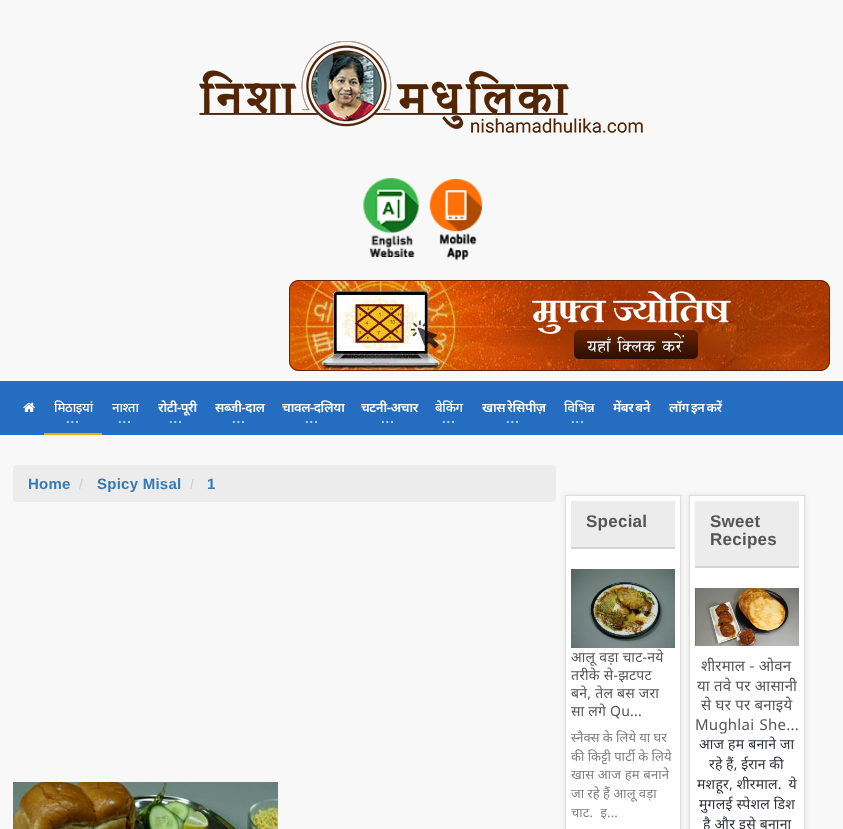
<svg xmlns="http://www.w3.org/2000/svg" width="843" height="829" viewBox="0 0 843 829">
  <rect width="100%" height="100%" fill="rgb(248,248,248)"/>
  <image x="199" y="41" width="444" height="92" href="pic1.png"/>
  <image x="363" y="178" width="56" height="79" href="pic2.png"/>
  <image x="430" y="179" width="52" height="81" href="pic3.png"/>
  <image x="289" y="280" width="541" height="91" href="pic4.png"/>
  <rect x="0" y="381" width="843" height="54" fill="rgb(37,109,193)"/>
  <image x="23" y="402" width="12" height="10" href="pic5.png"/>
  <rect x="44" y="433" width="58" height="2" fill="rgb(255,165,0)"/>
  <text x="54" y="412" font-family="Noto Sans" font-size="13" font-weight="500" letter-spacing="-0.4" fill="rgb(255,255,255)">मिठाइयां</text>
  <text x="66" y="423" font-family="Liberation Sans" font-size="13" font-weight="bold" letter-spacing="1" fill="rgb(190,211,236)">...</text>
  <text x="112" y="412" font-family="Noto Sans" font-size="13" font-weight="500" letter-spacing="-0.4" fill="rgb(255,255,255)">नाश्ता</text>
  <text x="118" y="423" font-family="Liberation Sans" font-size="13" font-weight="bold" letter-spacing="1" fill="rgb(190,211,236)">...</text>
  <text x="158" y="412" font-family="Noto Sans" font-size="13" font-weight="600" letter-spacing="-0.4" fill="rgb(255,255,255)">रोटी-पूरी</text>
  <text x="169" y="423" font-family="Liberation Sans" font-size="13" font-weight="bold" letter-spacing="1" fill="rgb(190,211,236)">...</text>
  <text x="215" y="412" font-family="Noto Sans" font-size="13" font-weight="600" letter-spacing="-0.4" fill="rgb(255,255,255)">सब्जी-दाल</text>
  <text x="232" y="423" font-family="Liberation Sans" font-size="13" font-weight="bold" letter-spacing="1" fill="rgb(190,211,236)">...</text>
  <text x="282" y="412" font-family="Noto Sans" font-size="13" font-weight="600" letter-spacing="-0.4" fill="rgb(255,255,255)">चावल-दलिया</text>
  <text x="305" y="423" font-family="Liberation Sans" font-size="13" font-weight="bold" letter-spacing="1" fill="rgb(190,211,236)">...</text>
  <text x="361" y="412" font-family="Noto Sans" font-size="13" font-weight="600" letter-spacing="-0.4" fill="rgb(255,255,255)">चटनी-अचार</text>
  <text x="381" y="423" font-family="Liberation Sans" font-size="13" font-weight="bold" letter-spacing="1" fill="rgb(190,211,236)">...</text>
  <text x="435" y="412" font-family="Noto Sans" font-size="13" font-weight="500" letter-spacing="-0.4" fill="rgb(255,255,255)">बेकिंग</text>
  <text x="442" y="423" font-family="Liberation Sans" font-size="13" font-weight="bold" letter-spacing="1" fill="rgb(190,211,236)">...</text>
  <text x="482" y="412" word-spacing="-1" font-family="Noto Sans" font-size="13" font-weight="600" letter-spacing="-0.4" fill="rgb(255,255,255)">खास रेसिपीज़</text>
  <text x="506" y="423" font-family="Liberation Sans" font-size="13" font-weight="bold" letter-spacing="1" fill="rgb(190,211,236)">...</text>
  <text x="564" y="412" font-family="Noto Sans" font-size="13" font-weight="500" letter-spacing="-0.4" fill="rgb(255,255,255)">विभिन्न</text>
  <text x="571" y="423" font-family="Liberation Sans" font-size="13" font-weight="bold" letter-spacing="1" fill="rgb(190,211,236)">...</text>
  <g font-family="Noto Sans" font-size="13" font-weight="600" letter-spacing="-0.4" fill="rgb(255,255,255)">
    <text x="613" y="412" word-spacing="-1">मेंबर बने</text>
    <text x="669" y="412" word-spacing="-1">लॉग इन करें</text>
  </g>
  <rect x="13" y="465" width="543" height="37" rx="4" fill="rgb(236,236,236)"/>
  <text x="28" y="489" font-family="Liberation Sans" font-size="15" font-weight="bold" letter-spacing="0.25" fill="rgb(51,122,183)">Home</text>
  <text x="79" y="489" font-family="Liberation Sans" font-size="14" letter-spacing="0.25" fill="rgb(204,204,204)">/</text>
  <text x="97" y="489" font-family="Liberation Sans" font-size="15" font-weight="bold" letter-spacing="0.25" fill="rgb(51,122,183)">Spicy Misal</text>
  <text x="190" y="489" font-family="Liberation Sans" font-size="14" letter-spacing="0.25" fill="rgb(204,204,204)">/</text>
  <text x="207" y="489" font-family="Liberation Sans" font-size="15" font-weight="bold" letter-spacing="0.25" fill="rgb(51,122,183)">1</text>
  <image x="13" y="782" width="265" height="47" href="pic6.png"/>
  <rect x="565" y="495" width="116" height="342" fill="rgb(222,222,222)" filter="blur(2.5px)"/>
  <rect x="566" y="496" width="114" height="333" fill="rgb(255,255,255)"/>
  <rect x="565" y="495" width="116" height="1" fill="rgb(222,222,222)"/>
  <rect x="680" y="495" width="1" height="334" fill="rgb(222,222,222)"/>
  <rect x="565" y="495" width="1" height="334" fill="rgb(222,222,222)"/>
  <rect x="571" y="501" width="104" height="46" fill="rgb(236,236,236)"/>
  <rect x="571" y="547" width="104" height="2" fill="rgb(212,212,212)"/>
  <text x="586" y="527" font-family="Liberation Sans" font-size="17" font-weight="bold" letter-spacing="0.25" fill="rgb(85,85,85)">Special</text>
  <image x="571" y="569" width="104" height="79" href="pic7.png"/>
  <g font-family="Noto Sans" font-size="14" letter-spacing="0.25" fill="rgb(85,85,85)">
    <text>
      <tspan x="571" y="662">आलू वड़ा चाट-नये</tspan>
      <tspan x="571" y="680">तरीके से-झटपट</tspan>
      <tspan x="571" y="698">बने, तेल बस जरा</tspan>
      <tspan x="571" y="716">सा लगे Qu...</tspan>
    </text>
  </g>
  <g font-family="Noto Sans" font-size="13" letter-spacing="0.2" fill="rgb(126,126,126)">
    <text xml:space="preserve"><tspan x="571" y="742" word-spacing="-0.5">स्नैक्स के लिये या घर</tspan><tspan x="571" y="761" word-spacing="-0.5">की किट्टी पार्टी के लिये</tspan><tspan x="571" y="779">खास आज हम बनाने</tspan><tspan x="571" y="798" word-spacing="-0.5">जा रहे हैं आलू वड़ा</tspan><tspan x="571" y="817">चाट.  इ...</tspan></text>
  </g>
  <rect x="689" y="495" width="116" height="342" fill="rgb(222,222,222)" filter="blur(2.5px)"/>
  <rect x="690" y="496" width="114" height="333" fill="rgb(255,255,255)"/>
  <rect x="689" y="495" width="116" height="1" fill="rgb(222,222,222)"/>
  <rect x="804" y="495" width="1" height="334" fill="rgb(222,222,222)"/>
  <rect x="689" y="495" width="1" height="334" fill="rgb(222,222,222)"/>
  <rect x="695" y="501" width="104" height="65" fill="rgb(236,236,236)"/>
  <rect x="695" y="566" width="104" height="2" fill="rgb(212,212,212)"/>
  <g font-family="Liberation Sans" font-size="17" font-weight="bold" letter-spacing="0.25" fill="rgb(85,85,85)">
    <text>
      <tspan x="710" y="527">Sweet</tspan>
      <tspan x="710" y="545">Recipes</tspan>
    </text>
  </g>
  <image x="695" y="588" width="104" height="58" href="pic8.png"/>
  <g font-family="Noto Sans" font-size="15" letter-spacing="0.25" fill="rgb(85,85,85)">
    <text x="701" y="671">शीरमाल - ओवन</text>
    <text x="697" y="691">या तवे पर आसानी</text>
    <text x="701" y="710">से घर पर बनाइये</text>
    <text x="695" y="730" word-spacing="1">Mughlai She...</text>
  </g>
  <g font-family="Noto Sans" font-size="14" letter-spacing="0.25" fill="rgb(47,50,57)">
    <text x="699" y="749">आज हम बनाने जा</text>
    <text x="709" y="769" word-spacing="-0.5">रहे हैं, ईरान की</text>
    <text x="697" y="789" word-spacing="-0.5" xml:space="preserve">मशहूर, शीरमाल.  ये</text>
    <text x="699" y="809">मुगलई स्पेशल डिश</text>
    <text x="703" y="829">है और इसे बनाना</text>
  </g>
</svg>
